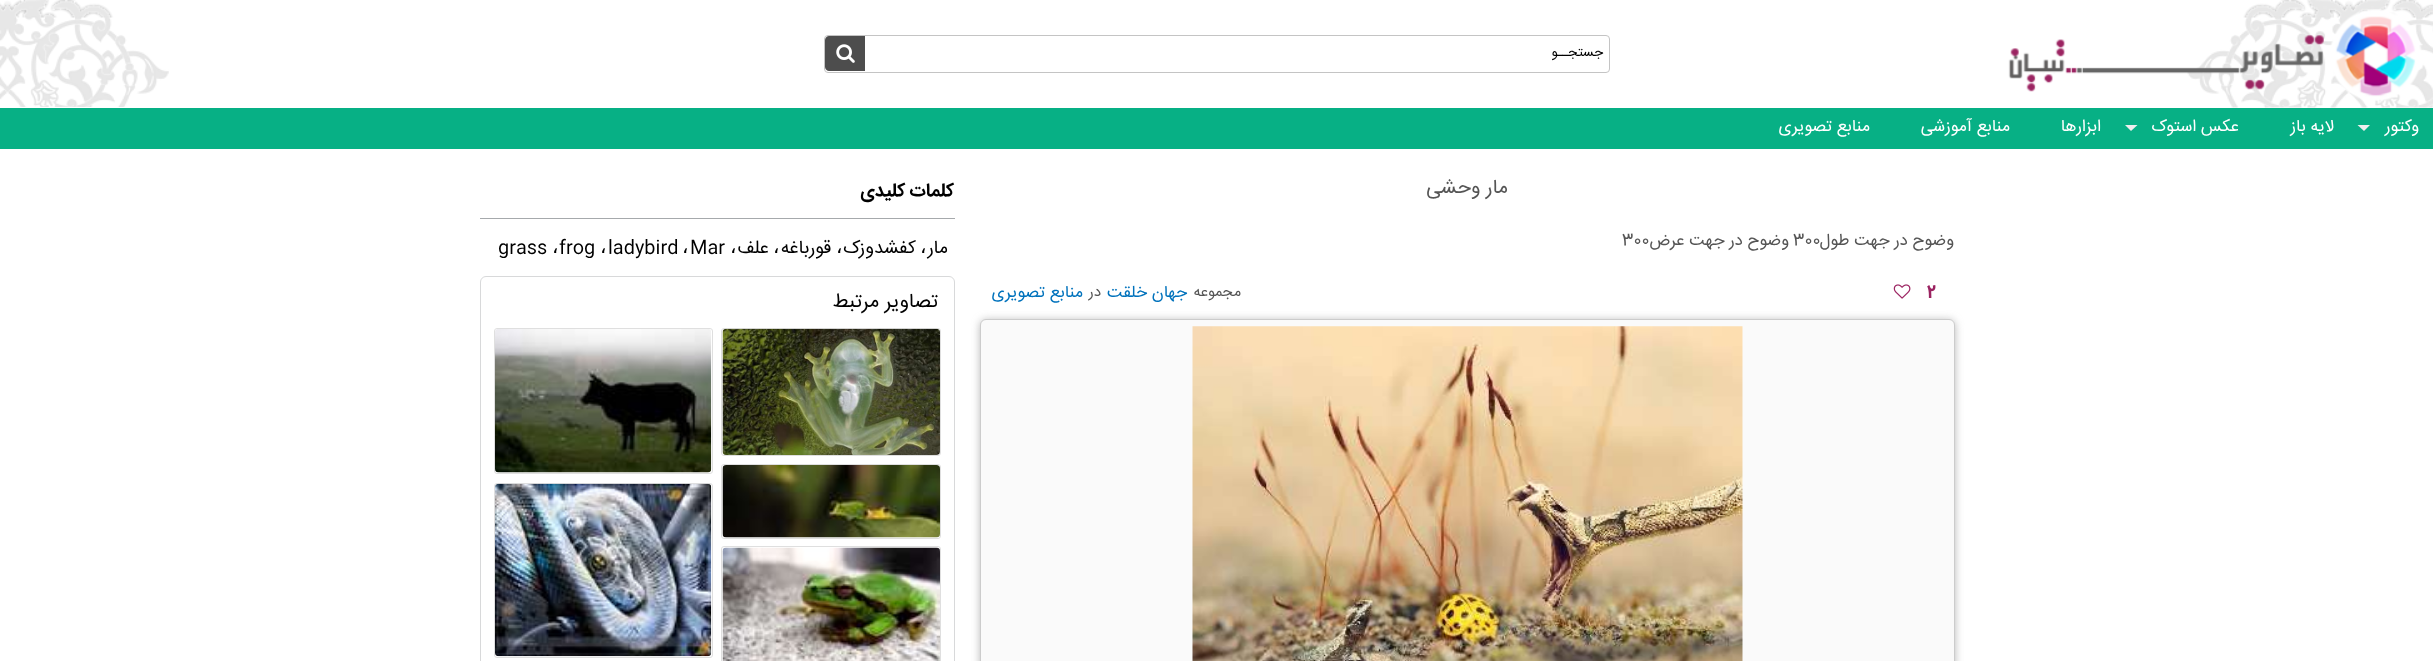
<svg xmlns="http://www.w3.org/2000/svg" width="2433" height="661" viewBox="0 0 2433 661">
  <rect width="100%" height="100%" fill="rgb(255,255,255)"/>
  <image x="2187" y="0" width="246" height="108" href="pic1.png"/>
  <image x="0" y="0" width="169" height="107" href="pic2.png"/>
  <image x="2008" y="9" width="414" height="92" href="pic3.png"/>
  <rect x="824.5" y="35.5" width="785" height="37" rx="3.5" fill="none" stroke="rgb(196,196,196)"/>
  <text x="1603" y="56" font-family="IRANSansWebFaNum" font-size="13.5" direction="rtl" fill="rgb(0,0,0)">جستجــو</text>
  <path d="M829 36H865V71H829C827 71 825 69 825 67V40C825 38 827 36 829 36Z" fill="rgb(77,77,77)"/>
  <image x="836" y="44" width="19" height="19" href="pic4.png"/>
  <rect x="0" y="108" width="2433" height="41" fill="rgb(7,176,133)"/>
  <text x="2419" y="131" font-family="IRANSansWebFaNum" font-size="16.75" direction="rtl" fill="rgb(255,255,255)">وکتور</text>
  <path d="M2357.5 125H2370L2364 131Z" fill="rgb(238,238,238)"/>
  <g font-family="IRANSansWebFaNum" font-size="16.75" direction="rtl" fill="rgb(255,255,255)">
    <text x="2334" y="131">لایه باز</text>
    <text x="2239" y="131">عکس استوک</text>
  </g>
  <path d="M2125 125H2137.5L2131 131Z" fill="rgb(238,238,238)"/>
  <g font-family="IRANSansWebFaNum" font-size="16.75" direction="rtl" fill="rgb(255,255,255)">
    <text x="2101" y="131">ابزارها</text>
    <text x="2010" y="131">منابع آموزشی</text>
    <text x="1870" y="131">منابع تصویری</text>
  </g>
  <text x="1508" y="193" font-family="IRANSansWebFaNum" font-size="20" direction="rtl" fill="rgb(85,85,85)">مار وحشی</text>
  <text x="1954" y="245" font-family="IRANSansWebFaNum" font-size="16.75" direction="rtl" fill="rgb(85,85,85)">وضوح در جهت طول</text>
  <text x="1793" y="245" font-family="IRANSansWebFaNum" font-size="16.75" fill="rgb(85,85,85)">300</text>
  <text x="1789" y="245" font-family="IRANSansWebFaNum" font-size="16.75" direction="rtl" fill="rgb(85,85,85)">وضوح در جهت عرض</text>
  <text x="1622" y="245" font-family="IRANSansWebFaNum" font-size="16.75" fill="rgb(85,85,85)">300</text>
  <text x="1927" y="297" font-family="IRANSansWebFaNum" font-size="16.75" font-weight="bold" fill="rgb(155,35,97)">2</text>
  <image x="1893" y="284" width="18" height="15" href="pic5.png"/>
  <text x="1241" y="296" font-family="IRANSansWebFaNum" font-size="15" direction="rtl" fill="rgb(85,85,85)">مجموعه</text>
  <text x="1187" y="297" font-family="IRANSansWebFaNum" font-size="16.75" direction="rtl" fill="rgb(0,114,188)">جهان خلقت</text>
  <text x="1101" y="296" font-family="IRANSansWebFaNum" font-size="15" direction="rtl" fill="rgb(85,85,85)">در</text>
  <text x="1083" y="297" font-family="IRANSansWebFaNum" font-size="16.75" direction="rtl" fill="rgb(0,114,188)">منابع تصویری</text>
  <rect x="980" y="320" width="975" height="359" rx="6" fill="rgba(136,136,136,0.6)" filter="blur(4px)"/>
  <rect x="980.5" y="319.5" width="974" height="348" rx="5.5" fill="rgb(250,250,250)" stroke="rgb(204,204,204)"/>
  <image x="1192" y="326" width="551" height="335" href="pic6.png"/>
  <rect x="480" y="218" width="475" height="1" fill="rgb(166,169,172)"/>
  <text x="954" y="196" font-family="IRANSansWebFaNum" font-size="18.5" font-weight="bold" direction="rtl" fill="rgb(0,0,0)">کلمات کلیدی</text>
  <text x="948" y="253" font-family="IRANSansWebFaNum" font-size="18.5" direction="rtl" fill="rgb(0,0,0)">مار</text>
  <text x="920" y="253" font-family="DejaVu Sans" font-size="20" fill="rgb(0,0,0)">،</text>
  <text x="916" y="253" font-family="IRANSansWebFaNum" font-size="18.5" direction="rtl" fill="rgb(0,0,0)">کفشدوزک</text>
  <text x="836" y="253" font-family="DejaVu Sans" font-size="20" fill="rgb(0,0,0)">،</text>
  <text x="831" y="253" font-family="IRANSansWebFaNum" font-size="18.5" direction="rtl" fill="rgb(0,0,0)">قورباغه</text>
  <text x="773" y="253" font-family="DejaVu Sans" font-size="20" fill="rgb(0,0,0)">،</text>
  <text x="769" y="253" font-family="IRANSansWebFaNum" font-size="18.5" direction="rtl" fill="rgb(0,0,0)">علف</text>
  <text x="730" y="253" font-family="DejaVu Sans" font-size="20" fill="rgb(0,0,0)">،</text>
  <text x="690" y="253" font-family="IRANSansWebFaNum" font-size="18.5" fill="rgb(0,0,0)">Mar</text>
  <text x="682" y="253" font-family="DejaVu Sans" font-size="20" fill="rgb(0,0,0)">،</text>
  <text x="608" y="253" font-family="IRANSansWebFaNum" font-size="18.5" fill="rgb(0,0,0)">ladybird</text>
  <text x="600" y="253" font-family="DejaVu Sans" font-size="20" fill="rgb(0,0,0)">،</text>
  <text x="559" y="253" font-family="IRANSansWebFaNum" font-size="18.5" fill="rgb(0,0,0)">frog</text>
  <text x="552" y="253" font-family="DejaVu Sans" font-size="20" fill="rgb(0,0,0)">،</text>
  <text x="498" y="253" font-family="IRANSansWebFaNum" font-size="18.5" fill="rgb(0,0,0)">grass</text>
  <rect x="480.5" y="276.5" width="474" height="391" rx="5.5" fill="none" stroke="rgb(216,217,218)"/>
  <text x="938" y="307" font-family="IRANSansWebFaNum" font-size="20" direction="rtl" fill="rgb(0,0,0)">تصاویر مرتبط</text>
  <rect x="721.5" y="328.5" width="219" height="127" rx="2.5" fill="none" stroke="rgb(223,223,223)"/>
  <image x="722" y="328" width="218" height="127" href="pic7.png"/>
  <rect x="494.5" y="328.5" width="218" height="145" rx="2.5" fill="none" stroke="rgb(223,223,223)"/>
  <image x="495" y="329" width="217" height="144" href="pic8.png"/>
  <rect x="721.5" y="464.5" width="219" height="74" rx="2.5" fill="none" stroke="rgb(223,223,223)"/>
  <image x="722" y="465" width="218" height="73" href="pic9.png"/>
  <rect x="494.5" y="483.5" width="218" height="174" rx="2.5" fill="none" stroke="rgb(223,223,223)"/>
  <image x="495" y="483" width="217" height="174" href="pic10.png"/>
  <rect x="721.5" y="546.5" width="219" height="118" rx="2.5" fill="none" stroke="rgb(223,223,223)"/>
  <image x="722" y="547" width="218" height="114" href="pic11.png"/>
</svg>
